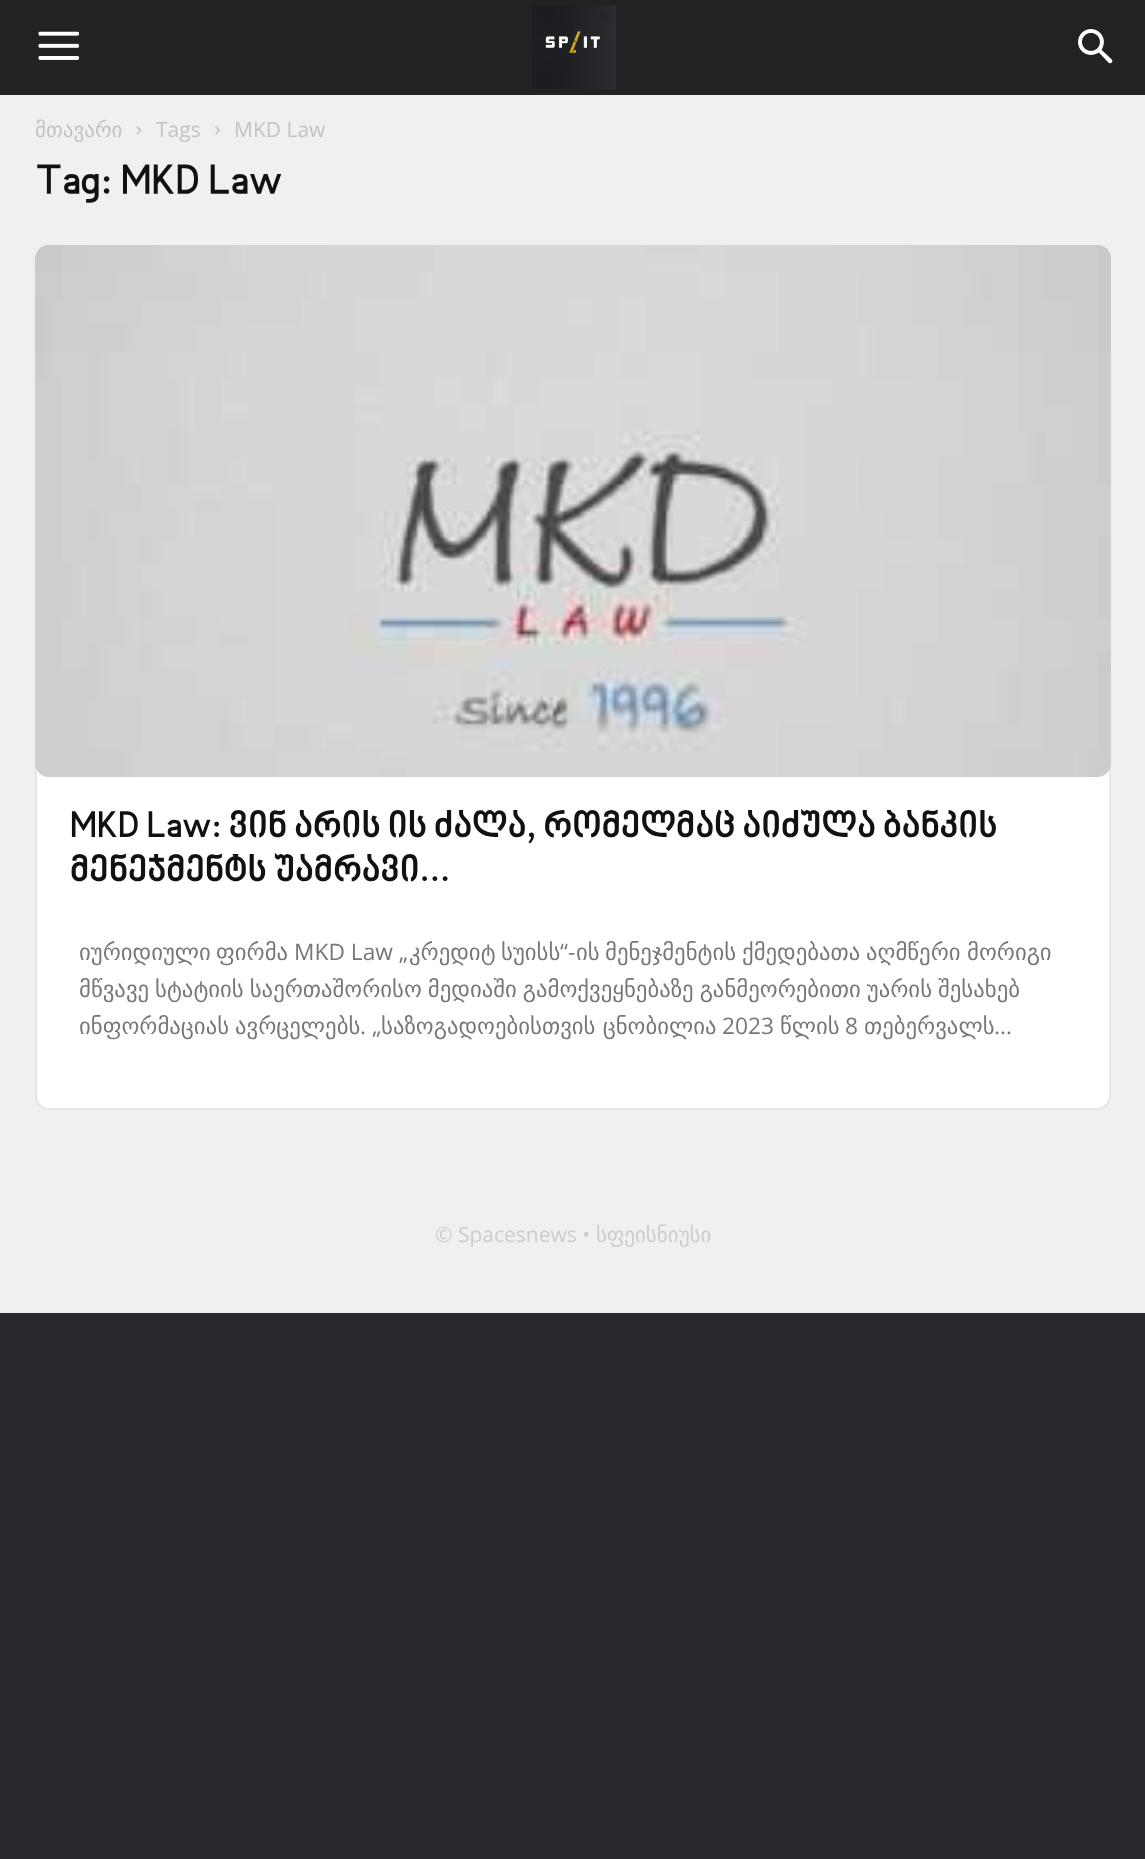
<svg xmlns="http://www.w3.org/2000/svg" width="1145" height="1859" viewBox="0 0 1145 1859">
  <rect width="100%" height="100%" fill="rgb(40,41,45)"/>
  <rect x="0" y="0" width="1145" height="95" fill="rgb(34,34,34)"/>
  <image x="38" y="31" width="41" height="29" href="pic1.png"/>
  <image x="532" y="5" width="84" height="84" href="pic2.png"/>
  <image x="1078" y="29" width="35" height="35" href="pic3.png"/>
  <rect x="0" y="95" width="1145" height="1218" fill="rgb(239,240,241)"/>
  <text x="35" y="137" font-family="DejaVu Sans" font-size="21" fill="rgb(195,195,195)">მთავარი</text>
  <image x="136" y="126" width="6" height="9" href="pic4.png"/>
  <text x="156" y="137" font-family="Open Sans" font-size="21" fill="rgb(195,195,195)">Tags</text>
  <image x="215" y="126" width="5" height="9" href="pic5.png"/>
  <text x="234" y="137" font-family="Open Sans" font-size="21" fill="rgb(195,195,195)">MKD Law</text>
  <text x="35" y="196" font-family="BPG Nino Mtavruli" font-size="42" font-weight="bold" fill="rgb(17,17,17)">Tag: MKD Law</text>
  <rect x="36" y="246" width="1074" height="863" rx="13" fill="rgb(255,255,255)" stroke="rgb(229,229,229)" stroke-width="2"/>
  <image x="35" y="245" width="1076" height="532" href="pic6.png"/>
  <g font-family="BPG Nino Mtavruli" font-size="36.75" font-weight="bold" fill="rgb(17,17,17)">
    <text>
      <tspan x="70" y="839">MKD Law: ვინ არის ის ძალა, რომელმაც აიძულა ბანკის</tspan>
      <tspan x="70" y="883">მენეჯმენტს უამრავი...</tspan>
    </text>
  </g>
  <g font-family="DejaVu Sans" font-size="22.75" fill="rgb(119,119,119)">
    <text x="79" y="960">იურიდიული</text>
    <text x="216" y="960">ფირმა</text>
  </g>
  <text x="294" y="960" font-family="Open Sans" font-size="22.75" fill="rgb(119,119,119)">MKD Law „</text>
  <g font-family="DejaVu Sans" font-size="22.75" fill="rgb(119,119,119)">
    <text x="409" y="960">კრედიტ</text>
    <text x="501" y="960">სუისს</text>
  </g>
  <text x="560" y="960" font-family="Open Sans" font-size="22.75" fill="rgb(119,119,119)">“-</text>
  <g font-family="DejaVu Sans" font-size="22.75" fill="rgb(119,119,119)">
    <text x="576" y="960">ის</text>
    <text x="605" y="960">მენეჯმენტის</text>
    <text x="742" y="960">ქმედებათა</text>
    <text x="866" y="960">აღმწერი</text>
    <text x="967" y="960">მორიგი</text>
    <text>
      <tspan x="79" y="997" word-spacing="-1.25">მწვავე სტატიის საერთაშორისო მედიაში გამოქვეყნებაზე განმეორებითი უარის შესახებ</tspan>
      <tspan x="79" y="1034">ინფორმაციას</tspan>
    </text>
    <text x="235" y="1034">ავრცელებს</text>
  </g>
  <text x="360" y="1034" font-family="Open Sans" font-size="22.75" fill="rgb(119,119,119)">. „</text>
  <text x="381" y="1034" font-family="DejaVu Sans" font-size="22.75" fill="rgb(119,119,119)">საზოგადოებისთვის ცნობილია</text>
  <text x="722" y="1034" font-family="Open Sans" font-size="22.75" fill="rgb(119,119,119)">2023</text>
  <text x="780" y="1034" font-family="DejaVu Sans" font-size="22.75" fill="rgb(119,119,119)">წლის</text>
  <text x="845" y="1034" font-family="Open Sans" font-size="22.75" fill="rgb(119,119,119)">8</text>
  <text x="864" y="1034" font-family="DejaVu Sans" font-size="22.75" fill="rgb(119,119,119)">თებერვალს</text>
  <text x="994" y="1034" font-family="Open Sans" font-size="22.75" fill="rgb(119,119,119)">...</text>
  <text x="435" y="1242" font-family="Open Sans" font-size="21" fill="rgb(204,204,204)">© Spacesnews •</text>
  <text x="596" y="1242" font-family="DejaVu Sans" font-size="21" fill="rgb(204,204,204)">სფეისნიუსი</text>
</svg>
